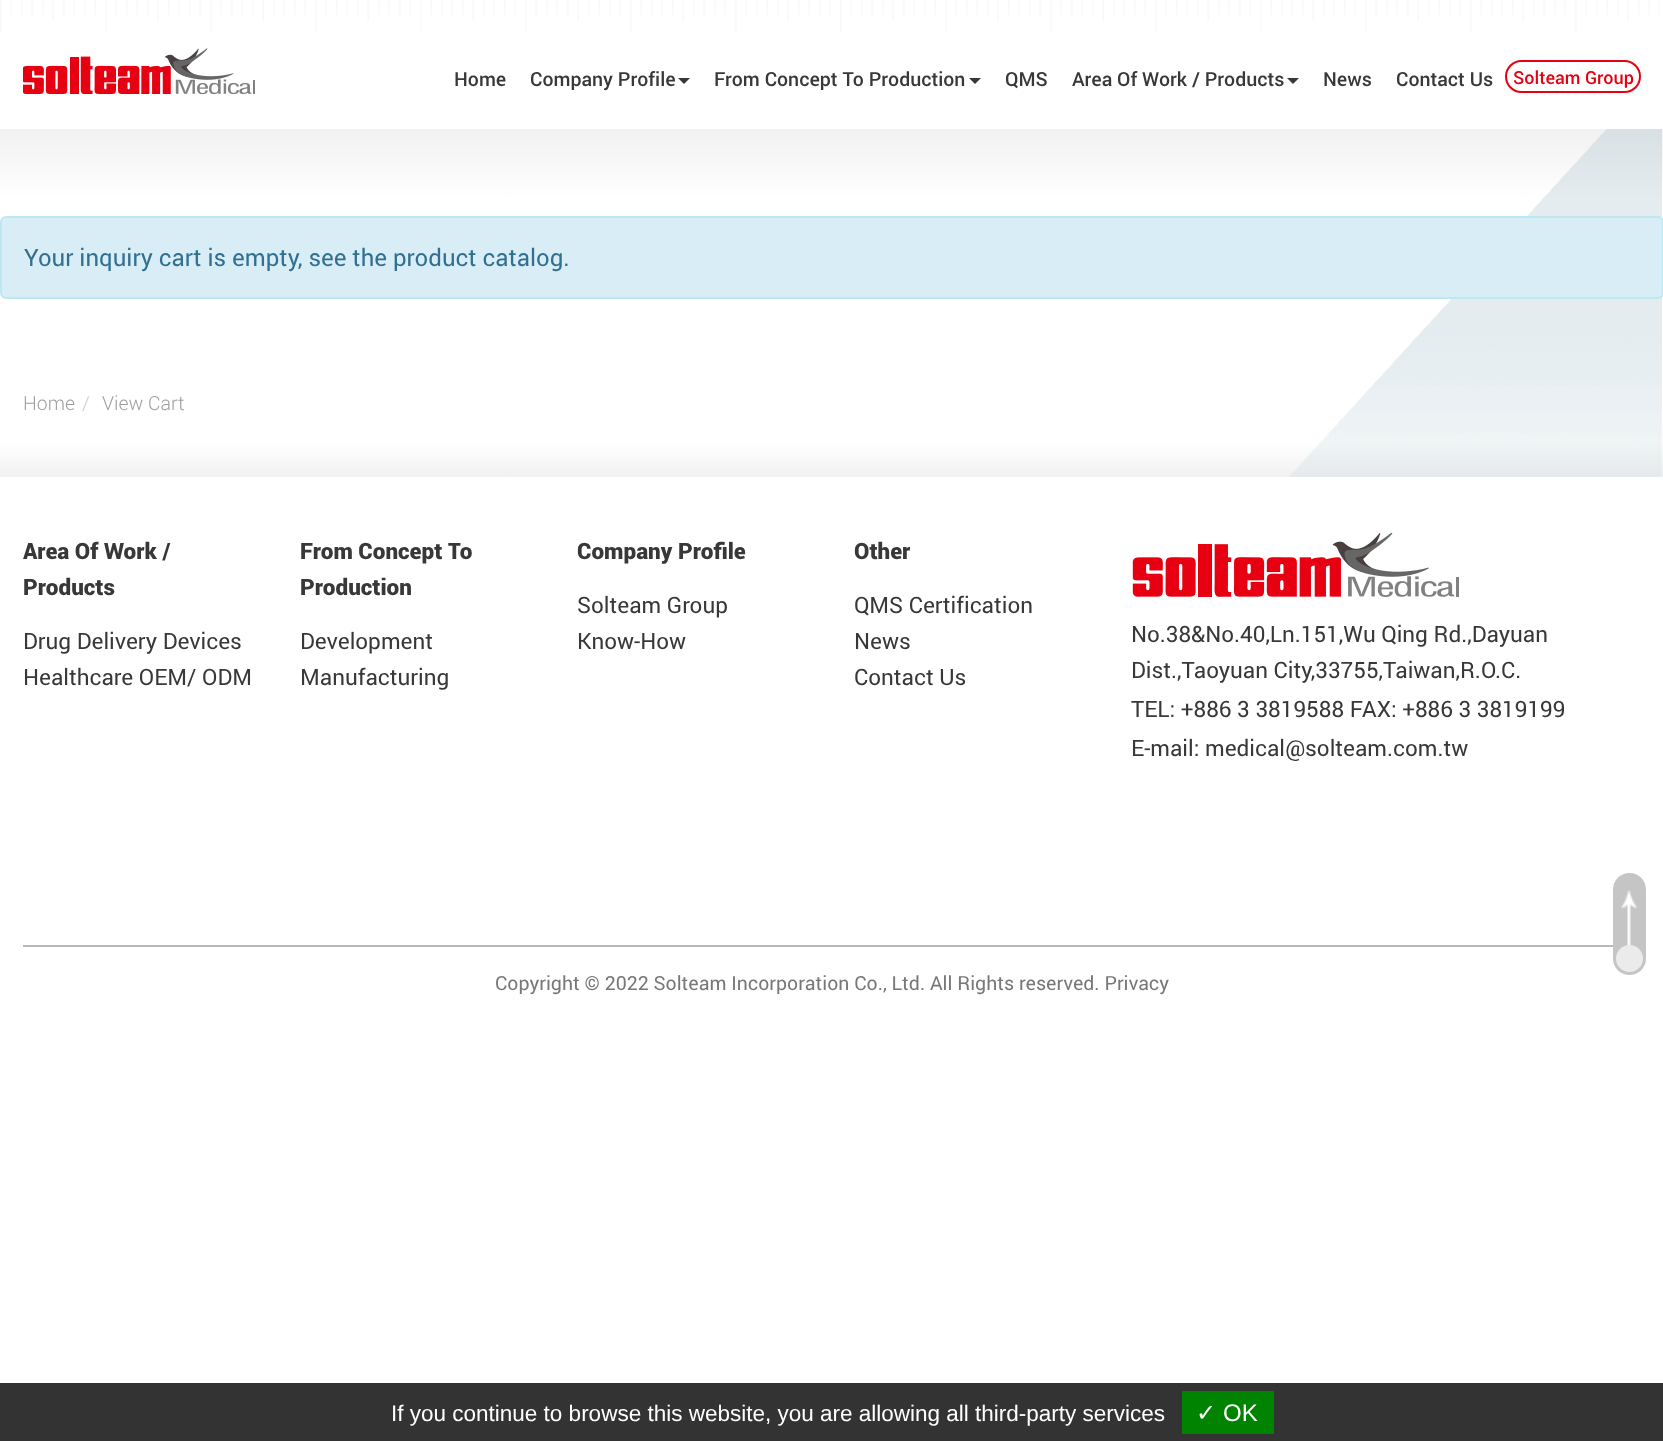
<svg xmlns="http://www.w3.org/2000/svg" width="1663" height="1441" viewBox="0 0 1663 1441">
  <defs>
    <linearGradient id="g1" gradientUnits="userSpaceOnUse" x1="832" y1="129" x2="832" y2="477"><stop offset="0" stop-color="rgb(241,241,241)"/><stop offset="0.2" stop-color="rgb(255,255,255)"/><stop offset="0.9" stop-color="rgb(255,255,255)"/><stop offset="1" stop-color="rgb(241,241,241)"/></linearGradient>
  </defs>
  <rect width="100%" height="100%" fill="rgb(255,255,255)"/>
  <image x="0" y="0" width="1660" height="33" href="pic1.png"/>
  <image x="23" y="48" width="232" height="47" href="pic2.png"/>
  <g font-family="Roboto" font-size="19.5" font-weight="500" fill="rgb(56,56,56)">
    <text x="454" y="86">Home</text>
    <text x="530" y="86">Company Profile</text>
  </g>
  <path d="M678 78H690L684 84Z" fill="rgb(56,56,56)"/>
  <text x="714" y="86" font-family="Roboto" font-size="19.5" font-weight="500" fill="rgb(56,56,56)">From Concept To Production</text>
  <path d="M969 78H981L975 84Z" fill="rgb(56,56,56)"/>
  <g font-family="Roboto" font-size="19.5" font-weight="500" fill="rgb(56,56,56)">
    <text x="1005" y="86">QMS</text>
    <text x="1072" y="86">Area Of Work / Products</text>
  </g>
  <path d="M1287 78H1299L1293 84Z" fill="rgb(56,56,56)"/>
  <g font-family="Roboto" font-size="19.5" font-weight="500" fill="rgb(56,56,56)">
    <text x="1323" y="86">News</text>
    <text x="1396" y="86">Contact Us</text>
  </g>
  <rect x="1506" y="61" width="134" height="31" rx="15.5" fill="none" stroke="rgb(230,0,18)" stroke-width="2"/>
  <text x="1513" y="84" font-family="Roboto" font-size="18" font-weight="500" fill="rgb(230,0,18)">Solteam Group</text>
  <rect x="0" y="129" width="1663" height="348" fill="url(#g1)"/>
  <image x="1289" y="129" width="373" height="348" href="pic3.png"/>
  <rect x="1" y="217" width="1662" height="81" rx="5" fill="rgb(217,237,247)" stroke="rgb(188,232,241)" stroke-width="2"/>
  <text x="24" y="266" font-family="Roboto" font-size="24" fill="rgb(49,112,143)">Your inquiry cart is empty, see the product catalog.</text>
  <text x="23" y="410" font-family="Roboto" font-size="19.5" font-weight="300" fill="rgb(158,158,158)">Home</text>
  <text x="82" y="410" font-family="Roboto" font-size="19.5" font-weight="300" fill="rgb(204,204,204)">/</text>
  <text x="102" y="410" font-family="Roboto" font-size="19.5" font-weight="300" fill="rgb(158,158,158)">View Cart</text>
  <g font-family="Roboto" font-size="22.5" font-weight="900" fill="rgb(56,56,56)">
    <text>
      <tspan x="23" y="559">Area Of Work /</tspan>
      <tspan x="23" y="595">Products</tspan>
    </text>
  </g>
  <g font-family="Roboto" font-size="22.5" fill="rgb(56,56,56)">
    <text>
      <tspan x="23" y="649">Drug Delivery Devices</tspan>
      <tspan x="23" y="685">Healthcare OEM/ ODM</tspan>
    </text>
  </g>
  <g font-family="Roboto" font-size="22.5" font-weight="900" fill="rgb(56,56,56)">
    <text>
      <tspan x="300" y="559">From Concept To</tspan>
      <tspan x="300" y="595">Production</tspan>
    </text>
  </g>
  <g font-family="Roboto" font-size="22.5" fill="rgb(56,56,56)">
    <text>
      <tspan x="300" y="649">Development</tspan>
      <tspan x="300" y="685">Manufacturing</tspan>
    </text>
  </g>
  <text x="577" y="559" font-family="Roboto" font-size="22.5" font-weight="900" fill="rgb(56,56,56)">Company Profile</text>
  <g font-family="Roboto" font-size="22.5" fill="rgb(56,56,56)">
    <text>
      <tspan x="577" y="613">Solteam Group</tspan>
      <tspan x="577" y="649">Know-How</tspan>
    </text>
  </g>
  <text x="854" y="559" font-family="Roboto" font-size="22.5" font-weight="900" fill="rgb(56,56,56)">Other</text>
  <g font-family="Roboto" font-size="22.5" fill="rgb(56,56,56)">
    <text>
      <tspan x="854" y="613">QMS Certification</tspan>
      <tspan x="854" y="649">News</tspan>
      <tspan x="854" y="685">Contact Us</tspan>
    </text>
  </g>
  <image x="1132" y="533" width="327" height="64" href="pic4.png"/>
  <g font-family="Roboto" font-size="22.5" fill="rgb(56,56,56)">
    <text>
      <tspan x="1131" y="642">No.38&amp;No.40,Ln.151,Wu Qing Rd.,Dayuan</tspan>
      <tspan x="1131" y="678">Dist.,Taoyuan City,33755,Taiwan,R.O.C.</tspan>
      <tspan x="1131" y="717">TEL: +886 3 3819588 FAX: +886 3 3819199</tspan>
      <tspan x="1131" y="756">E-mail: medical@solteam.com.tw</tspan>
    </text>
  </g>
  <rect x="23" y="945" width="1590" height="2" fill="rgb(184,184,184)"/>
  <text x="495" y="990" font-family="Roboto" font-size="19.5" fill="rgb(120,120,120)">Copyright © 2022 Solteam Incorporation Co., Ltd. All Rights reserved. Privacy</text>
  <rect x="1613" y="873" width="33" height="102" rx="16.5" fill="rgb(197,197,197)"/>
  <image x="1621" y="890" width="16" height="56" href="pic5.png"/>
  <circle cx="1629.5" cy="958.5" r="13.5" fill="rgb(235,235,235)"/>
  <rect x="0" y="1383" width="1663" height="58" fill="rgb(51,51,51)"/>
  <text x="391" y="1421" font-family="Liberation Sans" font-size="22.5" fill="rgb(255,255,255)">If you continue to browse this website, you are allowing all third-party services</text>
  <rect x="1182" y="1391" width="92" height="43" fill="rgb(0,131,0)"/>
  <text x="1196" y="1421" font-family="DejaVu Sans" font-size="24" fill="rgb(255,255,255)">✓</text>
  <text x="1223" y="1421" font-family="Liberation Sans" font-size="24" fill="rgb(255,255,255)">OK</text>
</svg>
